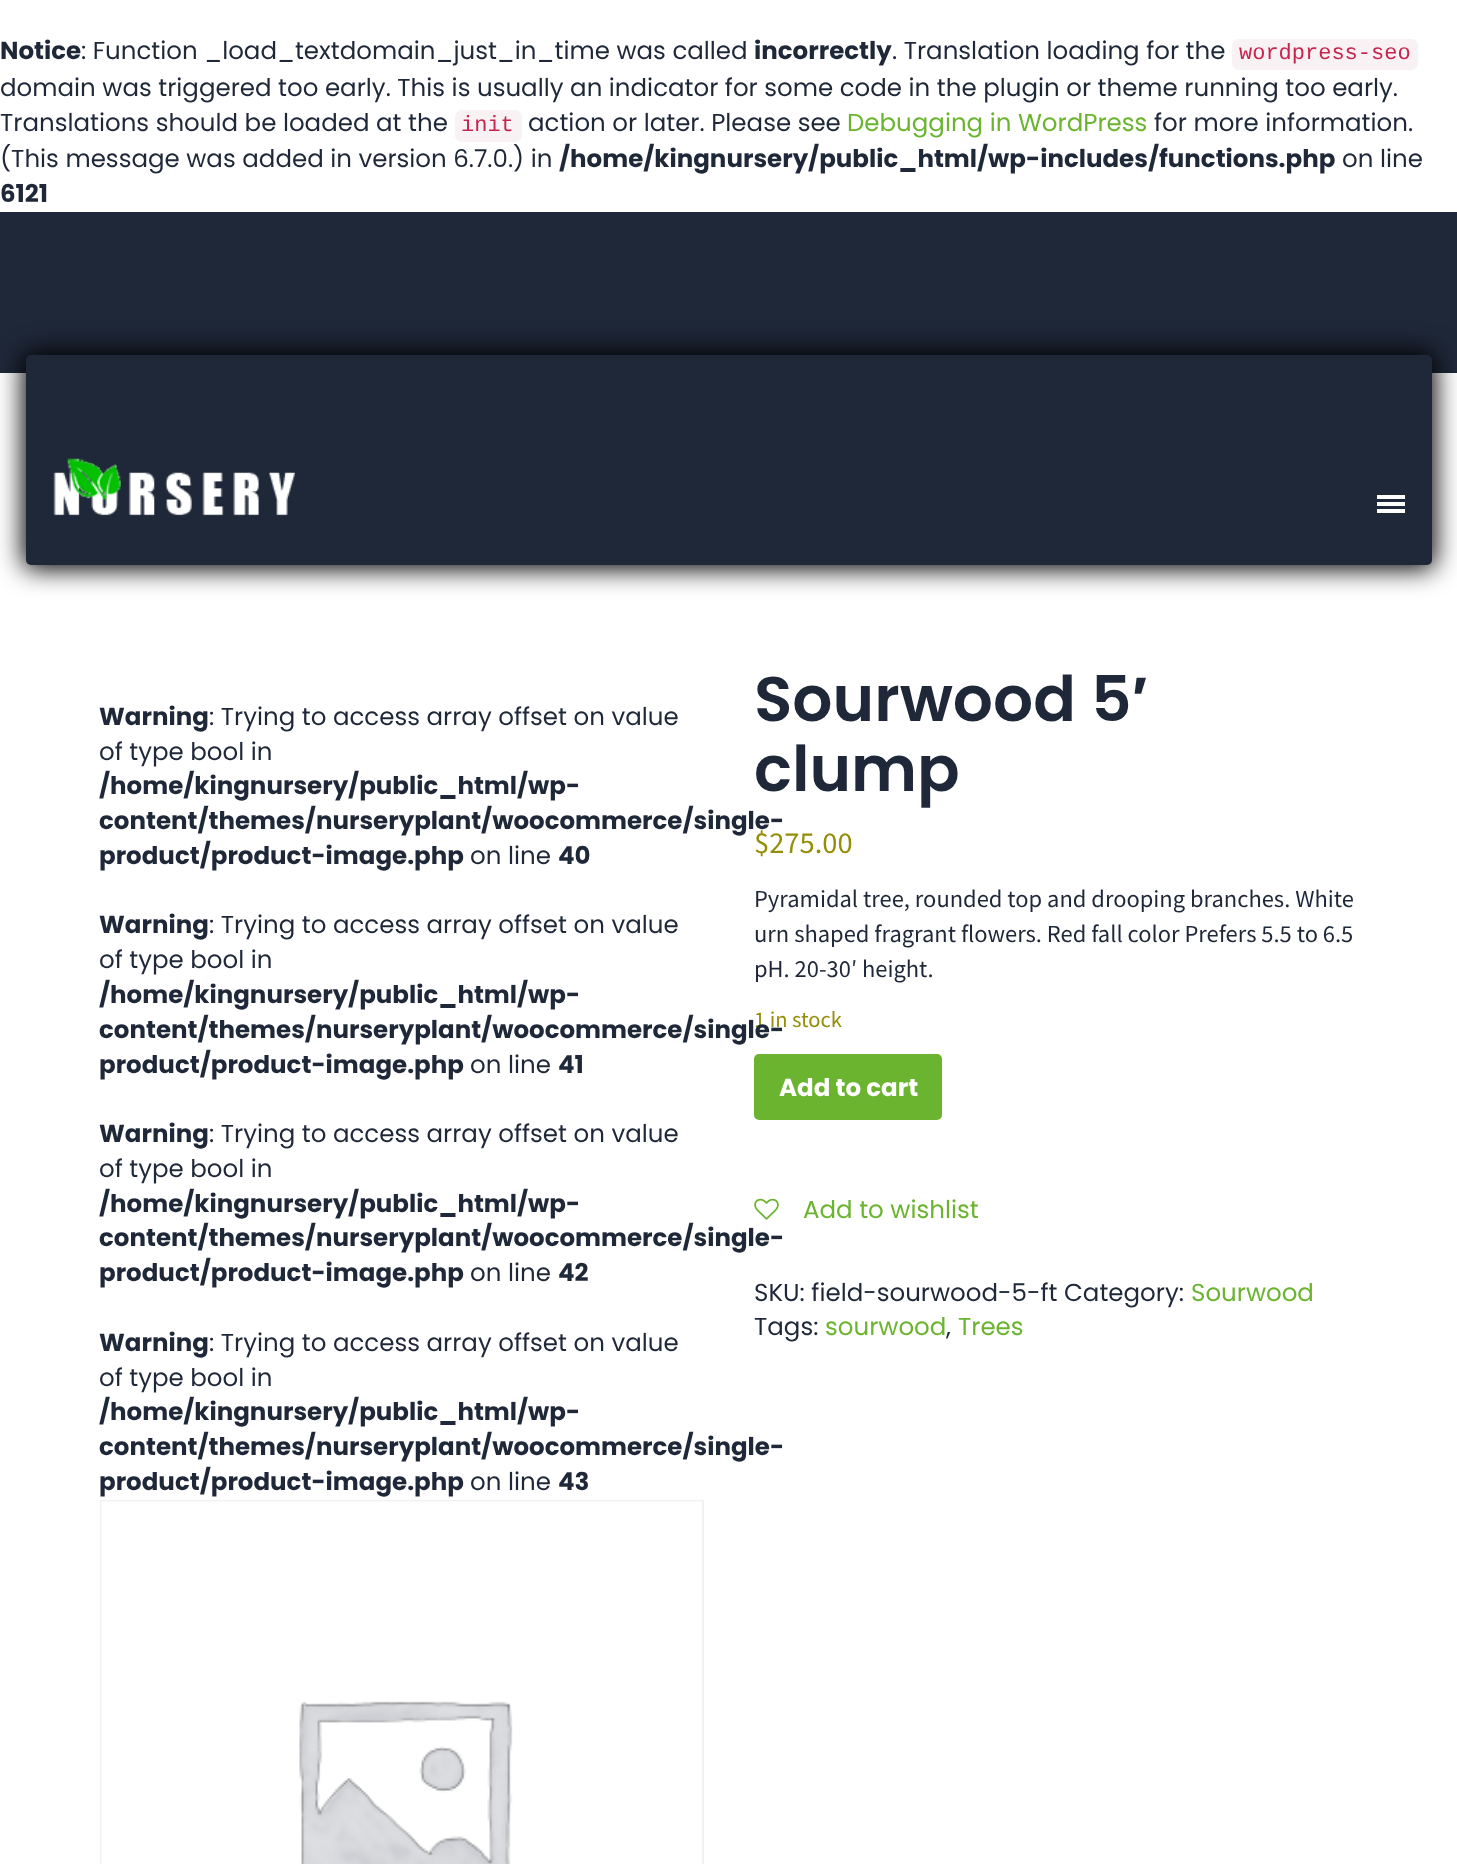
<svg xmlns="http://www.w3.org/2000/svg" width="1457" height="1864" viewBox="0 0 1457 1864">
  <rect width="100%" height="100%" fill="rgb(255,255,255)"/>
  <text x="0" y="59" font-family="Poppins" font-size="24.5" font-weight="bold" fill="rgb(31,40,57)">Notice</text>
  <text x="81" y="59" font-family="Poppins" font-size="24.5" fill="rgb(31,40,57)">: Function _load_textdomain_just_in_time was called</text>
  <text x="754" y="59" font-family="Poppins" font-size="24.5" font-weight="bold" fill="rgb(31,40,57)">incorrectly</text>
  <text x="892" y="59" font-family="Poppins" font-size="24.5" fill="rgb(31,40,57)">. Translation loading for the</text>
  <rect x="1232" y="39" width="186" height="31" rx="7" fill="rgb(249,242,244)"/>
  <text x="1239" y="59" font-family="Liberation Mono" font-size="22" fill="rgb(199,37,78)">wordpress-seo</text>
  <g font-family="Poppins" font-size="24.5" fill="rgb(31,40,57)">
    <text>
      <tspan x="0" y="96">domain was triggered too early. This is usually an indicator for some code in the plugin or theme running too early.</tspan>
      <tspan x="0" y="131">Translations should be loaded at the</tspan>
    </text>
  </g>
  <rect x="455" y="110" width="67" height="32" rx="7" fill="rgb(249,242,244)"/>
  <text x="461" y="131" font-family="Liberation Mono" font-size="22" fill="rgb(199,37,78)">init</text>
  <text x="528" y="131" font-family="Poppins" font-size="24.5" fill="rgb(31,40,57)">action or later. Please see</text>
  <text x="847" y="131" font-family="Poppins" font-size="24.5" fill="rgb(107,180,47)">Debugging in WordPress</text>
  <g font-family="Poppins" font-size="24.5" fill="rgb(31,40,57)">
    <text x="1154" y="131">for more information.</text>
    <text x="0" y="167">(This message was added in version 6.7.0.) in</text>
  </g>
  <text x="559" y="167" font-family="Poppins" font-size="24.5" font-weight="bold" fill="rgb(31,40,57)">/home/kingnursery/public_html/wp-includes/functions.php</text>
  <text x="1342" y="167" font-family="Poppins" font-size="24.5" fill="rgb(31,40,57)">on line</text>
  <text x="0" y="202" font-family="Poppins" font-size="24.5" font-weight="bold" fill="rgb(31,40,57)">6121</text>
  <rect x="0" y="212" width="1457" height="161" fill="rgb(31,40,57)"/>
  <rect x="23" y="352" width="1412" height="217" rx="9" fill="rgb(0,0,0)" filter="blur(13px)"/>
  <rect x="26" y="355" width="1406" height="210" rx="5" fill="rgb(31,40,57)"/>
  <image x="53" y="458" width="242" height="58" href="pic1.png"/>
  <rect x="1377" y="495" width="28" height="4" fill="rgb(255,255,255)"/>
  <rect x="1377" y="502" width="28" height="4" fill="rgb(255,255,255)"/>
  <rect x="1377" y="509" width="28" height="4" fill="rgb(255,255,255)"/>
  <text x="99" y="725" font-family="Poppins" font-size="24.5" font-weight="bold" fill="rgb(31,40,57)">Warning</text>
  <g font-family="Poppins" font-size="24.5" fill="rgb(31,40,57)">
    <text x="209" y="725">: Trying to access array offset on value</text>
    <text x="99" y="760">of type bool in</text>
  </g>
  <g font-family="Poppins" font-size="24.5" font-weight="bold" fill="rgb(31,40,57)">
    <text>
      <tspan x="99" y="794">/home/kingnursery/public_html/wp-</tspan>
      <tspan x="99" y="829">content/themes/nurseryplant/woocommerce/single-</tspan>
      <tspan x="99" y="864">product/product-image.php</tspan>
    </text>
  </g>
  <text x="470" y="864" font-family="Poppins" font-size="24.5" fill="rgb(31,40,57)">on line</text>
  <g font-family="Poppins" font-size="24.5" font-weight="bold" fill="rgb(31,40,57)">
    <text x="558" y="864">40</text>
    <text x="99" y="933">Warning</text>
  </g>
  <g font-family="Poppins" font-size="24.5" fill="rgb(31,40,57)">
    <text x="209" y="933">: Trying to access array offset on value</text>
    <text x="99" y="968">of type bool in</text>
  </g>
  <text x="99" y="1003" font-family="Poppins" font-size="24.5" font-weight="bold" fill="rgb(31,40,57)">/home/kingnursery/public_html/wp-</text>
  <text x="754" y="1027" font-family="Source Sans Pro" font-size="22.5" fill="rgb(149,142,9)">1 in stock</text>
  <g font-family="Poppins" font-size="24.5" font-weight="bold" fill="rgb(31,40,57)">
    <text>
      <tspan x="99" y="1038">content/themes/nurseryplant/woocommerce/single-</tspan>
      <tspan x="99" y="1073">product/product-image.php</tspan>
    </text>
  </g>
  <text x="470" y="1073" font-family="Poppins" font-size="24.5" fill="rgb(31,40,57)">on line</text>
  <g font-family="Poppins" font-size="24.5" font-weight="bold" fill="rgb(31,40,57)">
    <text x="558" y="1073">41</text>
    <text x="99" y="1142">Warning</text>
  </g>
  <g font-family="Poppins" font-size="24.5" fill="rgb(31,40,57)">
    <text x="209" y="1142">: Trying to access array offset on value</text>
    <text x="99" y="1177">of type bool in</text>
  </g>
  <g font-family="Poppins" font-size="24.5" font-weight="bold" fill="rgb(31,40,57)">
    <text>
      <tspan x="99" y="1212">/home/kingnursery/public_html/wp-</tspan>
      <tspan x="99" y="1246">content/themes/nurseryplant/woocommerce/single-</tspan>
      <tspan x="99" y="1281">product/product-image.php</tspan>
    </text>
  </g>
  <text x="470" y="1281" font-family="Poppins" font-size="24.5" fill="rgb(31,40,57)">on line</text>
  <g font-family="Poppins" font-size="24.5" font-weight="bold" fill="rgb(31,40,57)">
    <text x="558" y="1281">42</text>
    <text x="99" y="1351">Warning</text>
  </g>
  <g font-family="Poppins" font-size="24.5" fill="rgb(31,40,57)">
    <text x="209" y="1351">: Trying to access array offset on value</text>
    <text x="99" y="1386">of type bool in</text>
  </g>
  <g font-family="Poppins" font-size="24.5" font-weight="bold" fill="rgb(31,40,57)">
    <text>
      <tspan x="99" y="1420">/home/kingnursery/public_html/wp-</tspan>
      <tspan x="99" y="1455">content/themes/nurseryplant/woocommerce/single-</tspan>
      <tspan x="99" y="1490">product/product-image.php</tspan>
    </text>
  </g>
  <text x="470" y="1490" font-family="Poppins" font-size="24.5" fill="rgb(31,40,57)">on line</text>
  <text x="558" y="1490" font-family="Poppins" font-size="24.5" font-weight="bold" fill="rgb(31,40,57)">43</text>
  <rect x="101" y="1501" width="602" height="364" fill="none" stroke="rgb(242,242,242)" stroke-width="2"/>
  <image x="101" y="1501" width="601" height="363" href="pic2.png"/>
  <text x="754" y="721" font-family="Poppins" font-size="63" font-weight="600" fill="rgb(31,40,57)">Sourwood 5</text>
  <text x="1132" y="721" font-family="Liberation Sans" font-size="63" font-weight="bold" fill="rgb(31,40,57)">′</text>
  <text x="754" y="791" font-family="Poppins" font-size="63" font-weight="600" fill="rgb(31,40,57)">clump</text>
  <text x="754" y="853" font-family="Source Sans Pro" font-size="30.5" fill="rgb(149,142,9)">$275.00</text>
  <g font-family="Source Sans Pro" font-size="24.5" fill="rgb(31,40,57)">
    <text>
      <tspan x="754" y="907">Pyramidal tree, rounded top and drooping branches. White</tspan>
      <tspan x="754" y="942">urn shaped fragrant flowers. Red fall color Prefers 5.5 to 6.5</tspan>
      <tspan x="754" y="977">pH. 20-30′ height.</tspan>
    </text>
  </g>
  <rect x="754" y="1054" width="188" height="66" rx="5" fill="rgb(107,180,47)"/>
  <text x="779" y="1096" font-family="Poppins" font-size="24.5" font-weight="bold" fill="rgb(255,255,255)">Add to cart</text>
  <image x="754" y="1198" width="25" height="22" href="pic3.png"/>
  <text x="803" y="1218" font-family="Poppins" font-size="24.5" fill="rgb(107,180,47)">Add to wishlist</text>
  <text x="754" y="1301" font-family="Poppins" font-size="24.5" fill="rgb(31,40,57)">SKU: field-sourwood-5-ft Category:</text>
  <text x="1191" y="1301" font-family="Poppins" font-size="24.5" fill="rgb(107,180,47)">Sourwood</text>
  <text x="754" y="1335" font-family="Poppins" font-size="24.5" fill="rgb(31,40,57)">Tags:</text>
  <text x="825" y="1335" font-family="Poppins" font-size="24.5" fill="rgb(107,180,47)">sourwood</text>
  <text x="946" y="1335" font-family="Poppins" font-size="24.5" fill="rgb(31,40,57)">,</text>
  <text x="958" y="1335" font-family="Poppins" font-size="24.5" fill="rgb(107,180,47)">Trees</text>
</svg>
